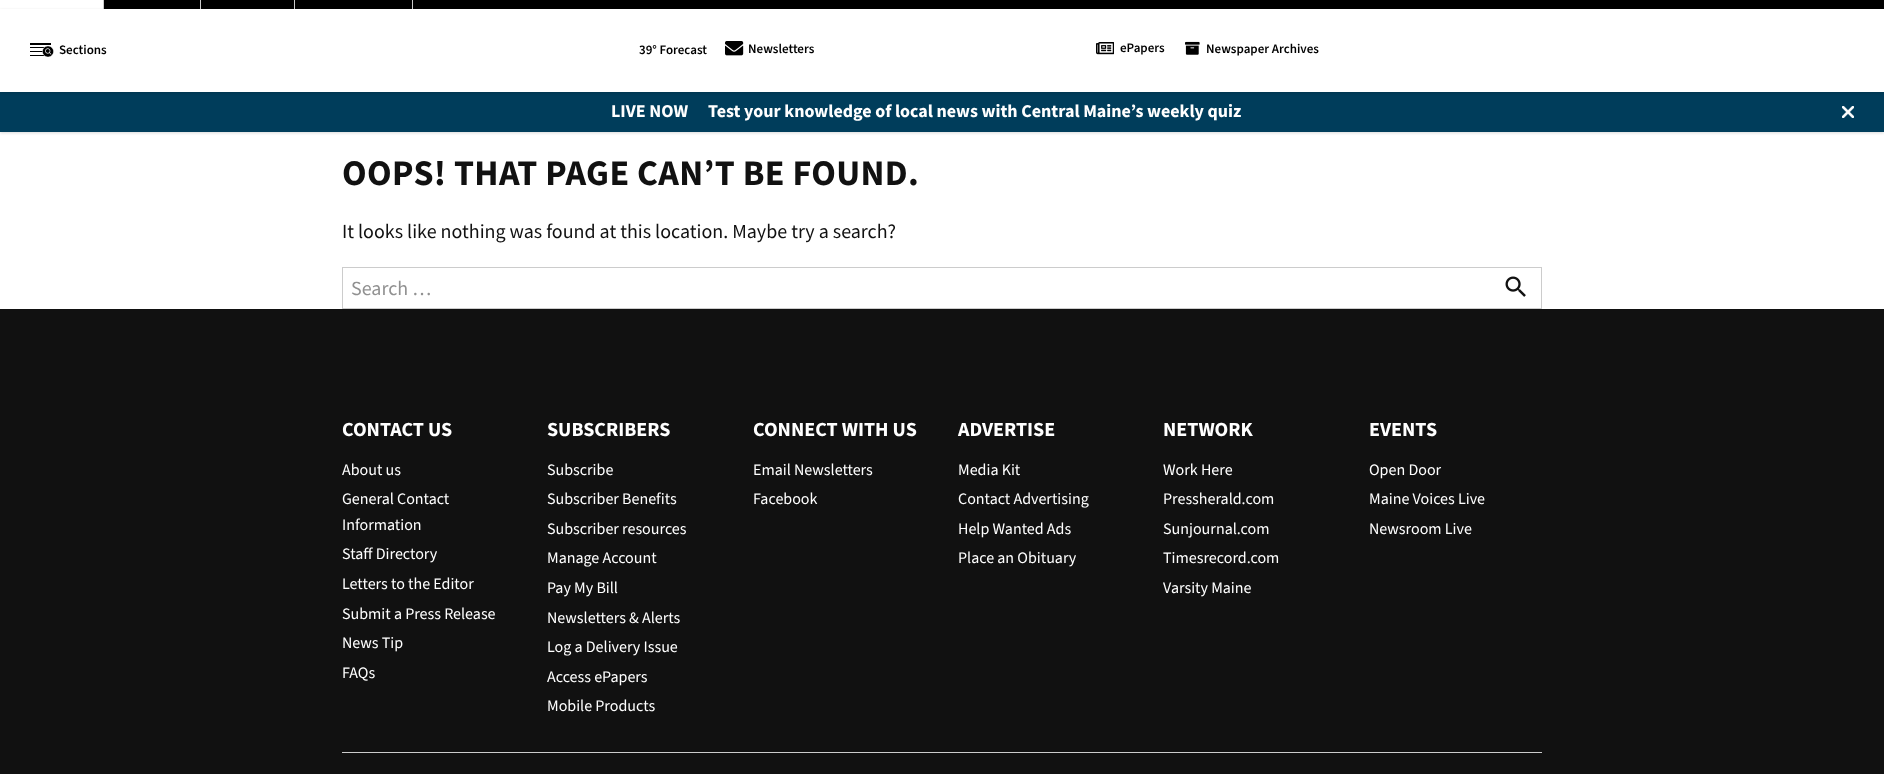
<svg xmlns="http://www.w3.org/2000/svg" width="1884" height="774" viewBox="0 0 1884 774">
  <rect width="100%" height="100%" fill="rgb(255,255,255)"/>
  <rect x="104" y="0" width="1780" height="9" fill="rgb(0,0,0)"/>
  <rect x="103" y="0" width="1" height="9" fill="rgb(204,204,204)"/>
  <rect x="200" y="0" width="1" height="9" fill="rgb(204,204,204)"/>
  <rect x="294" y="0" width="1" height="9" fill="rgb(204,204,204)"/>
  <rect x="412" y="0" width="1" height="9" fill="rgb(204,204,204)"/>
  <rect x="0" y="93" width="1884" height="40" fill="rgba(0,0,0,0.15)" filter="blur(1.5px)"/>
  <rect x="0" y="92" width="1884" height="40" fill="rgb(0,61,91)"/>
  <rect x="0" y="10" width="1884" height="83" fill="rgba(0,0,0,0.15)" filter="blur(1.5px)"/>
  <rect x="0" y="9" width="1884" height="83" fill="rgb(255,255,255)"/>
  <image x="30" y="43" width="24" height="14" href="pic1.png"/>
  <g font-family="'Source Sans 3'" font-size="13" font-weight="600" fill="rgb(0,0,0)">
    <text x="59" y="54">Sections</text>
    <text x="639" y="54">39° Forecast</text>
  </g>
  <image x="725" y="41" width="19" height="15" href="pic2.png"/>
  <text x="748" y="53" font-family="'Source Sans 3'" font-size="13" font-weight="600" fill="rgb(0,0,0)">Newsletters</text>
  <image x="1096" y="42" width="18" height="13" href="pic3.png"/>
  <text x="1120" y="52" font-family="'Source Sans 3'" font-size="13" font-weight="600" fill="rgb(0,0,0)">ePapers</text>
  <image x="1185" y="41" width="15" height="14" href="pic4.png"/>
  <text x="1206" y="53" font-family="'Source Sans 3'" font-size="13" font-weight="600" fill="rgb(0,0,0)">Newspaper Archives</text>
  <g font-family="Source Sans Pro" font-size="18" font-weight="bold" fill="rgb(255,255,255)">
    <text x="611" y="117">LIVE NOW</text>
    <text x="708" y="117">Test your knowledge of local news with Central Maine’s weekly quiz</text>
  </g>
  <image x="1842" y="106" width="12" height="12" href="pic5.png"/>
  <text x="342" y="185" font-family="'Source Sans 3'" font-size="36" font-weight="bold" letter-spacing="0.35" fill="rgb(17,17,17)">OOPS! THAT PAGE CAN’T BE FOUND.</text>
  <text x="342" y="238" font-family="Source Sans Pro" font-size="20" fill="rgb(17,17,17)">It looks like nothing was found at this location. Maybe try a search?</text>
  <rect x="342.5" y="267.5" width="1199" height="41" fill="none" stroke="rgb(204,204,204)"/>
  <text x="351" y="295" font-family="Source Sans Pro" font-size="20" fill="rgb(145,145,145)">Search …</text>
  <image x="1505" y="276" width="21" height="21" href="pic6.png"/>
  <rect x="0" y="309" width="1884" height="465" fill="rgb(17,17,17)"/>
  <text x="342" y="436" font-family="'Source Sans 3'" font-size="20" font-weight="bold" fill="rgb(255,255,255)">CONTACT US</text>
  <g font-family="'Source Sans 3'" font-size="16" fill="rgb(255,255,255)">
    <text>
      <tspan x="342" y="475">About us</tspan>
      <tspan x="342" y="504">General Contact</tspan>
      <tspan x="342" y="530">Information</tspan>
      <tspan x="342" y="559">Staff Directory</tspan>
      <tspan x="342" y="589">Letters to the Editor</tspan>
      <tspan x="342" y="619">Submit a Press Release</tspan>
      <tspan x="342" y="648">News Tip</tspan>
      <tspan x="342" y="678">FAQs</tspan>
    </text>
  </g>
  <text x="547" y="436" font-family="'Source Sans 3'" font-size="20" font-weight="bold" fill="rgb(255,255,255)">SUBSCRIBERS</text>
  <g font-family="'Source Sans 3'" font-size="16" fill="rgb(255,255,255)">
    <text>
      <tspan x="547" y="475">Subscribe</tspan>
      <tspan x="547" y="504">Subscriber Benefits</tspan>
      <tspan x="547" y="534">Subscriber resources</tspan>
      <tspan x="547" y="563">Manage Account</tspan>
      <tspan x="547" y="593">Pay My Bill</tspan>
      <tspan x="547" y="623">Newsletters &amp; Alerts</tspan>
      <tspan x="547" y="652">Log a Delivery Issue</tspan>
      <tspan x="547" y="682">Access ePapers</tspan>
      <tspan x="547" y="711">Mobile Products</tspan>
    </text>
  </g>
  <text x="753" y="436" font-family="'Source Sans 3'" font-size="20" font-weight="bold" fill="rgb(255,255,255)">CONNECT WITH US</text>
  <g font-family="'Source Sans 3'" font-size="16" fill="rgb(255,255,255)">
    <text>
      <tspan x="753" y="475">Email Newsletters</tspan>
      <tspan x="753" y="504">Facebook</tspan>
    </text>
  </g>
  <text x="958" y="436" font-family="'Source Sans 3'" font-size="20" font-weight="bold" fill="rgb(255,255,255)">ADVERTISE</text>
  <g font-family="'Source Sans 3'" font-size="16" fill="rgb(255,255,255)">
    <text>
      <tspan x="958" y="475">Media Kit</tspan>
      <tspan x="958" y="504">Contact Advertising</tspan>
      <tspan x="958" y="534">Help Wanted Ads</tspan>
      <tspan x="958" y="563">Place an Obituary</tspan>
    </text>
  </g>
  <text x="1163" y="436" font-family="'Source Sans 3'" font-size="20" font-weight="bold" fill="rgb(255,255,255)">NETWORK</text>
  <g font-family="'Source Sans 3'" font-size="16" fill="rgb(255,255,255)">
    <text>
      <tspan x="1163" y="475">Work Here</tspan>
      <tspan x="1163" y="504">Pressherald.com</tspan>
      <tspan x="1163" y="534">Sunjournal.com</tspan>
      <tspan x="1163" y="563">Timesrecord.com</tspan>
      <tspan x="1163" y="593">Varsity Maine</tspan>
    </text>
  </g>
  <text x="1369" y="436" font-family="'Source Sans 3'" font-size="20" font-weight="bold" fill="rgb(255,255,255)">EVENTS</text>
  <g font-family="'Source Sans 3'" font-size="16" fill="rgb(255,255,255)">
    <text>
      <tspan x="1369" y="475">Open Door</tspan>
      <tspan x="1369" y="504">Maine Voices Live</tspan>
      <tspan x="1369" y="534">Newsroom Live</tspan>
    </text>
  </g>
  <rect x="342" y="752" width="1200" height="1" fill="rgb(204,204,204)"/>
</svg>
